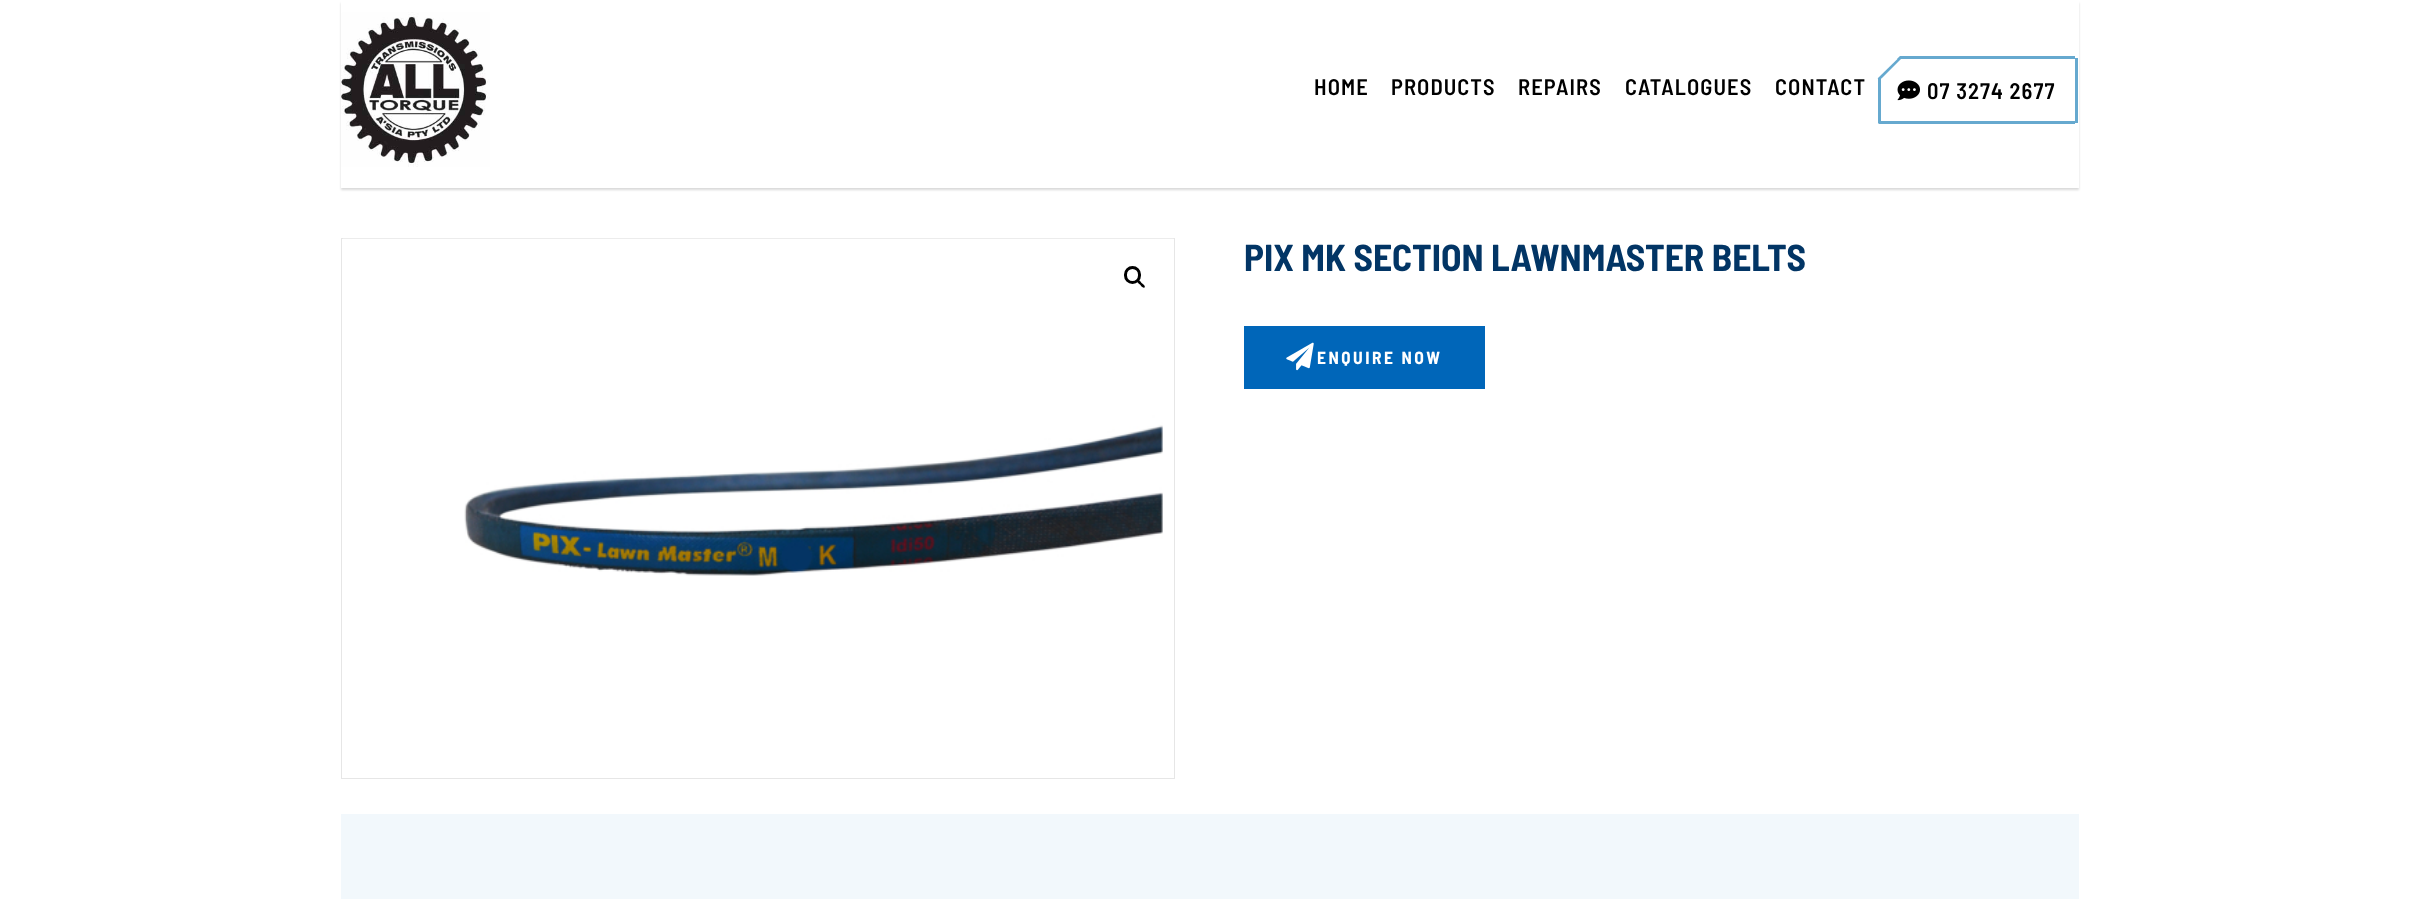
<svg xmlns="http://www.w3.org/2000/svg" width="2418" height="899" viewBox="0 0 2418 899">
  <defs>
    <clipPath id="clip1"><path d="M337 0H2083V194H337ZM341 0H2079V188H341Z" clip-rule="evenodd"/></clipPath>
  </defs>
  <rect width="100%" height="100%" fill="rgb(255,255,255)"/>
  <g clip-path="url(#clip1)">
    <rect x="341" y="3" width="1738" height="187" fill="rgba(0,0,0,0.15)" filter="blur(1px)"/>
  </g>
  <image x="341" y="12" width="149" height="155" href="pic1.png"/>
  <g font-family="Barlow Semi Condensed" font-size="22.5" font-weight="600" letter-spacing="1.1" fill="rgb(0,0,0)">
    <text x="1314" y="95">HOME</text>
    <text x="1391" y="95">PRODUCTS</text>
    <text x="1518" y="95">REPAIRS</text>
    <text x="1625" y="95">CATALOGUES</text>
    <text x="1775" y="95">CONTACT</text>
  </g>
  <rect x="2075" y="58" width="3" height="65" fill="rgb(102,169,207)"/>
  <path d="M2075 59V56H1900L1897 59Z" fill="rgb(102,169,207)"/>
  <path d="M1900 56.5H1903.5L1881.5 78.5H1877.5Z" fill="rgb(102,169,207)"/>
  <path d="M1878 121H2075V124H1880L1878 123Z" fill="rgb(102,169,207)"/>
  <path d="M1878 78V123C1879 124 1880 124 1881 124V78Z" fill="rgb(102,169,207)"/>
  <image x="1897" y="80" width="23" height="21" href="pic2.png"/>
  <text x="1927" y="99" font-family="Barlow Semi Condensed" font-size="22.5" font-weight="600" letter-spacing="1.1" fill="rgb(0,0,0)">07 3274 2677</text>
  <rect x="341.5" y="238.5" width="833" height="540" fill="none" stroke="rgb(230,230,230)"/>
  <image x="343" y="238" width="831" height="338" href="pic3.png"/>
  <rect x="1125.5" y="267.5" width="14" height="15" rx="7" fill="none" stroke="rgb(0,0,0)" stroke-width="3"/>
  <path d="M1137.5 280C1138.5 279 1141 282 1141.5 283C1142.5 283.5 1146 286 1144.5 287.5C1143 288.5 1140.5 285.5 1140 284.5C1139 284 1136 281.5 1137.5 280Z" fill="rgb(0,0,0)"/>
  <text x="1244" y="271" font-family="Barlow Semi Condensed" font-size="37.5" font-weight="bold" fill="rgb(2,53,101)">PIX MK SECTION LAWNMASTER BELTS</text>
  <rect x="1244" y="326" width="241" height="63" fill="rgb(0,102,185)"/>
  <image x="1286" y="342" width="28" height="29" href="pic4.png"/>
  <text x="1317" y="364" font-family="Barlow Semi Condensed" font-size="17.5" font-weight="bold" letter-spacing="2.5" fill="rgb(255,255,255)">ENQUIRE NOW</text>
  <rect x="341" y="814" width="1738" height="85" fill="rgb(242,248,252)"/>
</svg>
